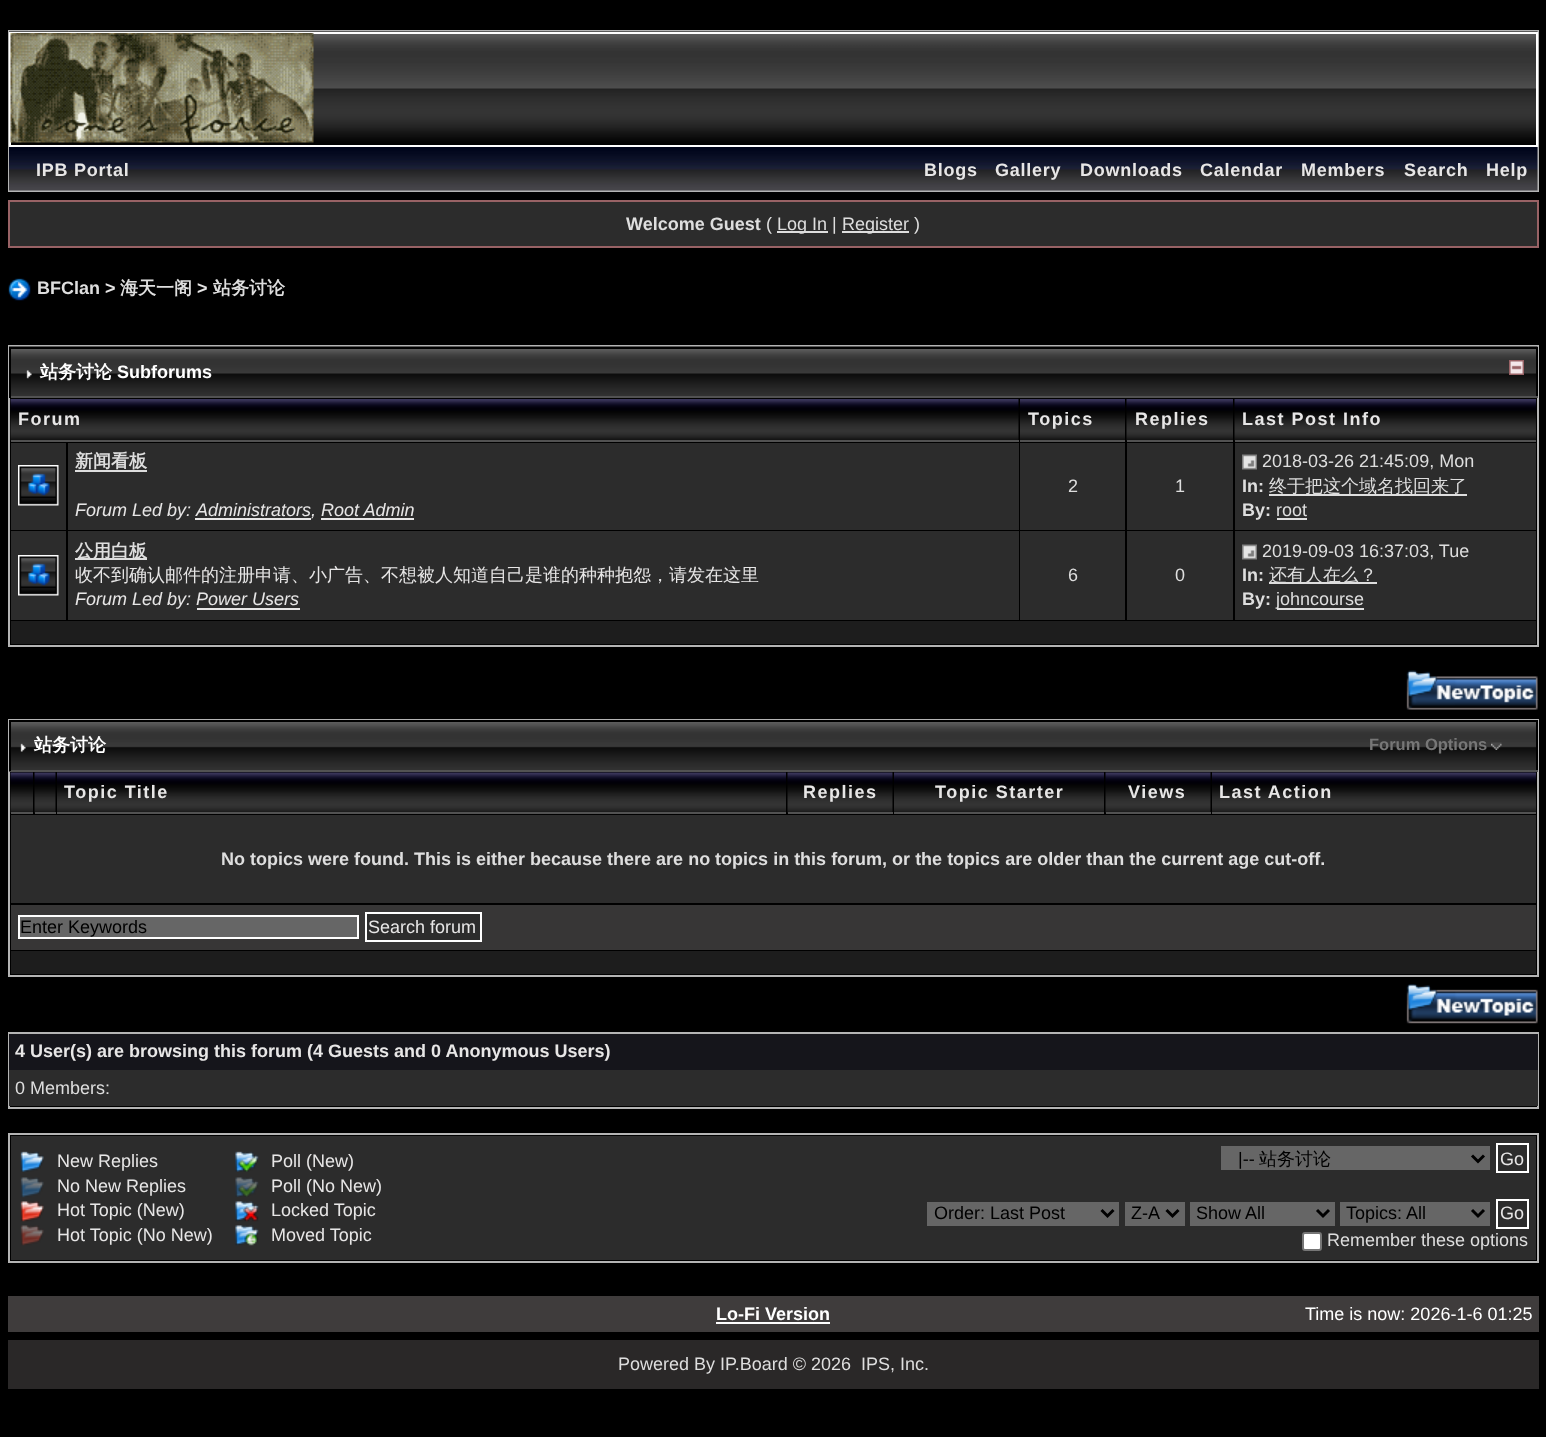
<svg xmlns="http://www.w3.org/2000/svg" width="1546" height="1437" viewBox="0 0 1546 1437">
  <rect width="100%" height="100%" fill="rgb(0,0,0)"/>
  <rect x="9" y="31" width="1529" height="160" fill="none" stroke="rgb(180,180,180)" stroke-width="2"/>
  <image x="9" y="31" width="1529" height="114" href="pic1.png"/>
  <rect x="10" y="33" width="1527" height="113" fill="none" stroke="rgb(255,255,255)" stroke-width="2"/>
  <image x="10" y="33" width="304" height="110" href="pic2.png"/>
  <image x="9" y="147" width="1529" height="44" href="pic3.png"/>
  <g font-family="Liberation Sans" font-size="18" font-weight="bold" letter-spacing="0.75" fill="rgb(231,230,230)">
    <text x="36" y="176">IPB Portal</text>
    <text x="924" y="176">Blogs</text>
    <text x="995" y="176">Gallery</text>
    <text x="1080" y="176">Downloads</text>
    <text x="1200" y="176">Calendar</text>
    <text x="1301" y="176">Members</text>
    <text x="1404" y="176">Search</text>
    <text x="1486" y="176">Help</text>
  </g>
  <rect x="9" y="201" width="1529" height="46" fill="rgb(44,44,44)" stroke="rgb(152,98,101)" stroke-width="2"/>
  <text x="626" y="230" font-family="Liberation Sans" font-size="18" font-weight="bold" fill="rgb(222,222,222)">Welcome Guest</text>
  <text x="766" y="230" font-family="Liberation Sans" font-size="18" fill="rgb(222,222,222)">(</text>
  <rect x="777" y="231" width="51" height="2" fill="rgb(222,222,222)"/>
  <text x="777" y="230" font-family="Liberation Sans" font-size="18" fill="rgb(222,222,222)">Log In |</text>
  <rect x="842" y="231" width="67" height="2" fill="rgb(222,222,222)"/>
  <text x="842" y="230" font-family="Liberation Sans" font-size="18" fill="rgb(222,222,222)">Register )</text>
  <image x="8" y="278" width="23" height="23" href="pic4.png"/>
  <text x="37" y="294" font-family="Liberation Sans" font-size="18" font-weight="bold" fill="rgb(222,222,222)">BFClan</text>
  <text x="105" y="294" font-family="Liberation Sans" font-size="18" font-weight="bold" fill="rgb(231,230,230)">&gt;</text>
  <text x="120" y="294" font-family="WenQuanYi Zen Hei" font-size="18" font-weight="bold" fill="rgb(222,222,222)">海天一阁</text>
  <text x="197" y="294" font-family="Liberation Sans" font-size="18" font-weight="bold" fill="rgb(231,230,230)">&gt;</text>
  <text x="213" y="294" font-family="WenQuanYi Zen Hei" font-size="18" font-weight="bold" fill="rgb(222,222,222)">站务讨论</text>
  <rect x="9" y="346" width="1529" height="300" fill="none" stroke="rgb(180,180,180)" stroke-width="2"/>
  <image x="9" y="346" width="1529" height="50" href="pic5.png"/>
  <rect x="9" y="347" width="1529" height="2" fill="rgb(0,0,0)"/>
  <rect x="1536" y="347" width="2" height="51" fill="rgb(0,0,0)"/>
  <rect x="9" y="396" width="1529" height="2" fill="rgb(82,82,82)"/>
  <rect x="9" y="347" width="2" height="51" fill="rgb(0,0,0)"/>
  <image x="26" y="370" width="6" height="9" href="pic6.png"/>
  <text x="40" y="378" font-family="WenQuanYi Zen Hei" font-size="18" font-weight="bold" fill="rgb(255,255,255)">站务讨论</text>
  <text x="117" y="378" font-family="Liberation Sans" font-size="18" font-weight="bold" fill="rgb(255,255,255)">Subforums</text>
  <image x="1509" y="360" width="15" height="15" href="pic7.png"/>
  <image x="10" y="399" width="1009" height="42" href="pic8.png"/>
  <rect x="11" y="440" width="1008" height="2" fill="rgb(82,82,82)"/>
  <text x="18" y="425" font-family="Liberation Sans" font-size="18" font-weight="bold" letter-spacing="1.5" fill="rgb(231,230,230)">Forum</text>
  <image x="1020" y="399" width="105" height="41" href="pic9.png"/>
  <rect x="1020" y="440" width="105" height="2" fill="rgb(82,82,82)"/>
  <text x="1028" y="425" font-family="Liberation Sans" font-size="18" font-weight="bold" letter-spacing="1.5" fill="rgb(231,230,230)">Topics</text>
  <image x="1126" y="399" width="107" height="42" href="pic10.png"/>
  <rect x="1127" y="440" width="106" height="2" fill="rgb(82,82,82)"/>
  <text x="1135" y="425" font-family="Liberation Sans" font-size="18" font-weight="bold" letter-spacing="1.5" fill="rgb(231,230,230)">Replies</text>
  <image x="1234" y="399" width="302" height="42" href="pic11.png"/>
  <rect x="1235" y="440" width="301" height="2" fill="rgb(82,82,82)"/>
  <text x="1242" y="425" font-family="Liberation Sans" font-size="18" font-weight="bold" letter-spacing="1.5" fill="rgb(231,230,230)">Last Post Info</text>
  <rect x="11" y="443" width="55" height="87" fill="rgb(44,44,44)"/>
  <image x="18" y="465" width="41" height="41" href="pic12.png"/>
  <rect x="68" y="443" width="951" height="87" fill="rgb(44,44,44)"/>
  <text x="75" y="467" font-family="WenQuanYi Zen Hei" font-size="18" font-weight="bold" fill="rgb(222,222,222)">新闻看板</text>
  <rect x="75" y="470" width="72" height="2" fill="rgb(222,222,222)"/>
  <text x="75" y="516" font-family="Liberation Sans" font-size="18" font-style="italic" fill="rgb(231,230,230)">Forum Led by:</text>
  <rect x="195" y="518" width="116" height="2" fill="rgb(231,230,230)"/>
  <text x="196" y="516" font-family="Liberation Sans" font-size="18" font-style="italic" fill="rgb(231,230,230)">Administrators, Root Admin</text>
  <rect x="321" y="518" width="93" height="2" fill="rgb(231,230,230)"/>
  <rect x="1020" y="443" width="105" height="87" fill="rgb(44,44,44)"/>
  <text x="1068" y="492" font-family="Liberation Sans" font-size="18" fill="rgb(222,222,222)">2</text>
  <rect x="1127" y="443" width="106" height="87" fill="rgb(44,44,44)"/>
  <text x="1175" y="492" font-family="Liberation Sans" font-size="18" fill="rgb(222,222,222)">1</text>
  <rect x="1235" y="443" width="301" height="87" fill="rgb(44,44,44)"/>
  <image x="1242" y="454" width="15" height="16" href="pic13.png"/>
  <text x="1262" y="467" font-family="Liberation Sans" font-size="18" fill="rgb(222,222,222)">2018-03-26 21:45:09, Mon</text>
  <text x="1242" y="492" font-family="Liberation Sans" font-size="18" font-weight="bold" fill="rgb(222,222,222)">In:</text>
  <rect x="1269" y="494" width="198" height="2" fill="rgb(222,222,222)"/>
  <text x="1269" y="492" font-family="WenQuanYi Zen Hei" font-size="18" font-weight="500" fill="rgb(222,222,222)">终于把这个域名找回来了</text>
  <text x="1242" y="516" font-family="Liberation Sans" font-size="18" font-weight="bold" fill="rgb(222,222,222)">By:</text>
  <text x="1276" y="516" font-family="Liberation Sans" font-size="18" fill="rgb(222,222,222)">root</text>
  <rect x="1277" y="518" width="30" height="2" fill="rgb(222,222,222)"/>
  <rect x="11" y="531" width="55" height="89" fill="rgb(44,44,44)"/>
  <image x="18" y="555" width="41" height="41" href="pic12.png"/>
  <rect x="68" y="531" width="951" height="89" fill="rgb(44,44,44)"/>
  <rect x="75" y="558" width="72" height="2" fill="rgb(222,222,222)"/>
  <text x="75" y="557" font-family="WenQuanYi Zen Hei" font-size="18" font-weight="bold" fill="rgb(222,222,222)">公用白板</text>
  <text x="75" y="581" font-family="WenQuanYi Zen Hei" font-size="18" font-weight="500" fill="rgb(231,230,230)">收不到确认邮件的注册申请、小广告、不想被人知道自己是谁的种种抱怨，请发在这里</text>
  <text x="75" y="605" font-family="Liberation Sans" font-size="18" font-style="italic" fill="rgb(231,230,230)">Forum Led by: Power Users</text>
  <rect x="197" y="608" width="103" height="2" fill="rgb(231,230,230)"/>
  <rect x="1020" y="531" width="105" height="89" fill="rgb(44,44,44)"/>
  <text x="1068" y="581" font-family="Liberation Sans" font-size="18" fill="rgb(222,222,222)">6</text>
  <rect x="1127" y="531" width="106" height="89" fill="rgb(44,44,44)"/>
  <text x="1175" y="581" font-family="Liberation Sans" font-size="18" fill="rgb(222,222,222)">0</text>
  <rect x="1235" y="531" width="301" height="89" fill="rgb(44,44,44)"/>
  <image x="1242" y="544" width="15" height="16" href="pic13.png"/>
  <text x="1262" y="557" font-family="Liberation Sans" font-size="18" fill="rgb(222,222,222)">2019-09-03 16:37:03, Tue</text>
  <text x="1242" y="581" font-family="Liberation Sans" font-size="18" font-weight="bold" fill="rgb(222,222,222)">In:</text>
  <rect x="1269" y="582" width="108" height="2" fill="rgb(222,222,222)"/>
  <text x="1269" y="581" font-family="WenQuanYi Zen Hei" font-size="18" font-weight="500" fill="rgb(222,222,222)">还有人在么？</text>
  <text x="1242" y="605" font-family="Liberation Sans" font-size="18" font-weight="bold" fill="rgb(222,222,222)">By:</text>
  <rect x="1277" y="608" width="87" height="2" fill="rgb(222,222,222)"/>
  <text x="1276" y="605" font-family="Liberation Sans" font-size="18" fill="rgb(222,222,222)">johncourse</text>
  <rect x="11" y="621" width="1525" height="23" fill="rgb(29,29,29)"/>
  <image x="1406" y="670" width="132" height="40" href="pic14.png"/>
  <rect x="9" y="720" width="1529" height="256" fill="none" stroke="rgb(180,180,180)" stroke-width="2"/>
  <image x="11" y="722" width="1525" height="48" href="pic15.png"/>
  <rect x="9" y="720" width="1529" height="2" fill="rgb(0,0,0)"/>
  <rect x="1537" y="720" width="1" height="51" fill="rgb(0,0,0)"/>
  <rect x="9" y="770" width="1529" height="2" fill="rgb(82,82,82)"/>
  <rect x="9" y="720" width="2" height="51" fill="rgb(0,0,0)"/>
  <image x="20" y="743" width="6" height="9" href="pic16.png"/>
  <text x="34" y="751" font-family="WenQuanYi Zen Hei" font-size="18" font-weight="bold" fill="rgb(255,255,255)">站务讨论</text>
  <text x="1369" y="750" font-family="Liberation Sans" font-size="16.5" font-weight="bold" fill="rgb(119,119,119)">Forum Options</text>
  <image x="1491" y="742" width="11" height="8" href="pic17.png"/>
  <image x="10" y="772" width="23" height="41" href="pic18.png"/>
  <rect x="11" y="812" width="22" height="2" fill="rgb(82,82,82)"/>
  <image x="34" y="772" width="22" height="41" href="pic19.png"/>
  <rect x="35" y="812" width="21" height="2" fill="rgb(82,82,82)"/>
  <image x="57" y="772" width="729" height="40" href="pic20.png"/>
  <rect x="57" y="812" width="729" height="2" fill="rgb(82,82,82)"/>
  <text x="64" y="798" font-family="Liberation Sans" font-size="18" font-weight="bold" letter-spacing="1.5" fill="rgb(231,230,230)">Topic Title</text>
  <image x="787" y="772" width="106" height="41" href="pic21.png"/>
  <rect x="788" y="812" width="105" height="2" fill="rgb(82,82,82)"/>
  <text x="803" y="798" font-family="Liberation Sans" font-size="18" font-weight="bold" letter-spacing="1.5" fill="rgb(231,230,230)">Replies</text>
  <image x="894" y="772" width="210" height="40" href="pic22.png"/>
  <rect x="894" y="812" width="210" height="2" fill="rgb(82,82,82)"/>
  <text x="935" y="798" font-family="Liberation Sans" font-size="18" font-weight="bold" letter-spacing="1.5" fill="rgb(231,230,230)">Topic Starter</text>
  <image x="1105" y="772" width="106" height="41" href="pic21.png"/>
  <rect x="1106" y="812" width="105" height="2" fill="rgb(82,82,82)"/>
  <text x="1128" y="798" font-family="Liberation Sans" font-size="18" font-weight="bold" letter-spacing="1.5" fill="rgb(231,230,230)">Views</text>
  <image x="1212" y="772" width="324" height="40" href="pic23.png"/>
  <rect x="1212" y="812" width="324" height="2" fill="rgb(82,82,82)"/>
  <text x="1219" y="798" font-family="Liberation Sans" font-size="18" font-weight="bold" letter-spacing="1.5" fill="rgb(231,230,230)">Last Action</text>
  <rect x="11" y="815" width="1525" height="88" fill="rgb(44,44,44)"/>
  <text x="221" y="865" font-family="Liberation Sans" font-size="18" font-weight="bold" fill="rgb(222,222,222)">No topics were found. This is either because there are no topics in this forum, or the topics are older than the current age cut-off.</text>
  <rect x="11" y="905" width="1525" height="45" fill="rgb(55,54,54)"/>
  <rect x="19" y="916" width="339" height="22" fill="rgb(102,102,102)" stroke="rgb(255,255,255)" stroke-width="2"/>
  <text x="20" y="933" font-family="Liberation Sans" font-size="18" fill="rgb(0,0,0)">Enter Keywords</text>
  <rect x="366" y="913" width="115" height="28" fill="rgb(44,44,44)" stroke="rgb(255,255,255)" stroke-width="2"/>
  <text x="368" y="933" font-family="Liberation Sans" font-size="18" fill="rgb(231,230,230)">Search forum</text>
  <rect x="11" y="951" width="1525" height="23" fill="rgb(29,29,29)"/>
  <image x="1406" y="984" width="132" height="40" href="pic24.png"/>
  <rect x="9" y="1033" width="1529" height="75" fill="none" stroke="rgb(180,180,180)" stroke-width="2"/>
  <rect x="9" y="1034" width="1529" height="36" fill="rgb(21,21,27)"/>
  <text x="15" y="1057" font-family="Liberation Sans" font-size="18" font-weight="bold" fill="rgb(231,230,230)">4 User(s) are browsing this forum (4 Guests and 0 Anonymous Users)</text>
  <rect x="9" y="1070" width="1529" height="36" fill="rgb(44,44,44)"/>
  <text x="15" y="1094" font-family="Liberation Sans" font-size="18" fill="rgb(222,222,222)">0 Members:</text>
  <rect x="9" y="1134" width="1529" height="128" fill="none" stroke="rgb(180,180,180)" stroke-width="2"/>
  <rect x="11" y="1136" width="1525" height="124" fill="rgb(44,44,44)"/>
  <image x="20" y="1151" width="24" height="21" href="pic25.png"/>
  <text x="57" y="1167" font-family="Liberation Sans" font-size="18" fill="rgb(231,230,230)">New Replies</text>
  <image x="20" y="1177" width="24" height="21" href="pic26.png"/>
  <text x="57" y="1192" font-family="Liberation Sans" font-size="18" fill="rgb(231,230,230)">No New Replies</text>
  <image x="20" y="1201" width="24" height="21" href="pic27.png"/>
  <text x="57" y="1216" font-family="Liberation Sans" font-size="18" fill="rgb(231,230,230)">Hot Topic (New)</text>
  <image x="20" y="1225" width="24" height="21" href="pic28.png"/>
  <text x="57" y="1241" font-family="Liberation Sans" font-size="18" fill="rgb(231,230,230)">Hot Topic (No New)</text>
  <image x="235" y="1151" width="24" height="21" href="pic29.png"/>
  <text x="271" y="1167" font-family="Liberation Sans" font-size="18" fill="rgb(231,230,230)">Poll (New)</text>
  <image x="235" y="1177" width="24" height="20" href="pic30.png"/>
  <text x="271" y="1192" font-family="Liberation Sans" font-size="18" fill="rgb(231,230,230)">Poll (No New)</text>
  <image x="235" y="1201" width="24" height="21" href="pic31.png"/>
  <text x="271" y="1216" font-family="Liberation Sans" font-size="18" fill="rgb(231,230,230)">Locked Topic</text>
  <image x="235" y="1225" width="24" height="21" href="pic32.png"/>
  <text x="271" y="1241" font-family="Liberation Sans" font-size="18" fill="rgb(231,230,230)">Moved Topic</text>
  <rect x="1221" y="1146" width="269" height="24" fill="rgb(102,102,102)"/>
  <path d="M1472 1155.5L1478 1161.5L1484 1155.5" fill="none" stroke="rgb(0,0,0)" stroke-width="3"/>
  <text x="1238" y="1165" font-family="Liberation Sans" font-size="18" fill="rgb(0,0,0)">|--</text>
  <text x="1259" y="1165" font-family="WenQuanYi Zen Hei" font-size="18" font-weight="500" fill="rgb(0,0,0)">站务讨论</text>
  <rect x="1497" y="1144" width="31" height="28" fill="none" stroke="rgb(255,255,255)" stroke-width="2"/>
  <text x="1500" y="1165" font-family="Liberation Sans" font-size="18" fill="rgb(231,230,230)">Go</text>
  <rect x="927" y="1202" width="192" height="24" fill="rgb(102,102,102)"/>
  <path d="M1101.5 1210L1107.5 1216L1113.5 1210" fill="none" stroke="rgb(0,0,0)" stroke-width="3"/>
  <text x="934" y="1219" font-family="Liberation Sans" font-size="18" fill="rgb(0,0,0)">Order: Last Post</text>
  <rect x="1125" y="1202" width="60" height="24" fill="rgb(102,102,102)"/>
  <path d="M1166.5 1210L1172.5 1216L1178.5 1210" fill="none" stroke="rgb(0,0,0)" stroke-width="3"/>
  <text x="1131" y="1219" font-family="Liberation Sans" font-size="18" fill="rgb(0,0,0)">Z-A</text>
  <rect x="1190" y="1202" width="145" height="24" fill="rgb(102,102,102)"/>
  <path d="M1317 1210L1323 1216L1329 1210" fill="none" stroke="rgb(0,0,0)" stroke-width="3"/>
  <text x="1196" y="1219" font-family="Liberation Sans" font-size="18" fill="rgb(0,0,0)">Show All</text>
  <rect x="1340" y="1202" width="150" height="24" fill="rgb(102,102,102)"/>
  <path d="M1472 1210L1478 1216L1484 1210" fill="none" stroke="rgb(0,0,0)" stroke-width="3"/>
  <text x="1346" y="1219" font-family="Liberation Sans" font-size="18" fill="rgb(0,0,0)">Topics: All</text>
  <rect x="1497" y="1200" width="31" height="28" fill="none" stroke="rgb(255,255,255)" stroke-width="2"/>
  <text x="1500" y="1219" font-family="Liberation Sans" font-size="18" fill="rgb(231,230,230)">Go</text>
  <rect x="1303" y="1233" width="18" height="17" rx="2" fill="rgb(255,255,255)" stroke="rgb(118,118,118)" stroke-width="2"/>
  <text x="1327" y="1246" font-family="Liberation Sans" font-size="18" fill="rgb(222,222,222)">Remember these options</text>
  <rect x="8" y="1296" width="1531" height="36" fill="rgb(63,60,60)"/>
  <text x="716" y="1320" font-family="Liberation Sans" font-size="18" font-weight="bold" fill="rgb(255,255,255)">Lo-Fi Version</text>
  <rect x="716" y="1322" width="114" height="2" fill="rgb(255,255,255)"/>
  <text x="1305" y="1320" font-family="Liberation Sans" font-size="18" fill="rgb(255,255,255)">Time is now: 2026-1-6 01:25</text>
  <rect x="8" y="1340" width="1531" height="49" fill="rgb(42,40,40)"/>
  <text x="618" y="1370" font-family="Liberation Sans" font-size="18" fill="rgb(222,222,222)" xml:space="preserve">Powered By IP.Board © 2026  IPS, Inc.</text>
</svg>
